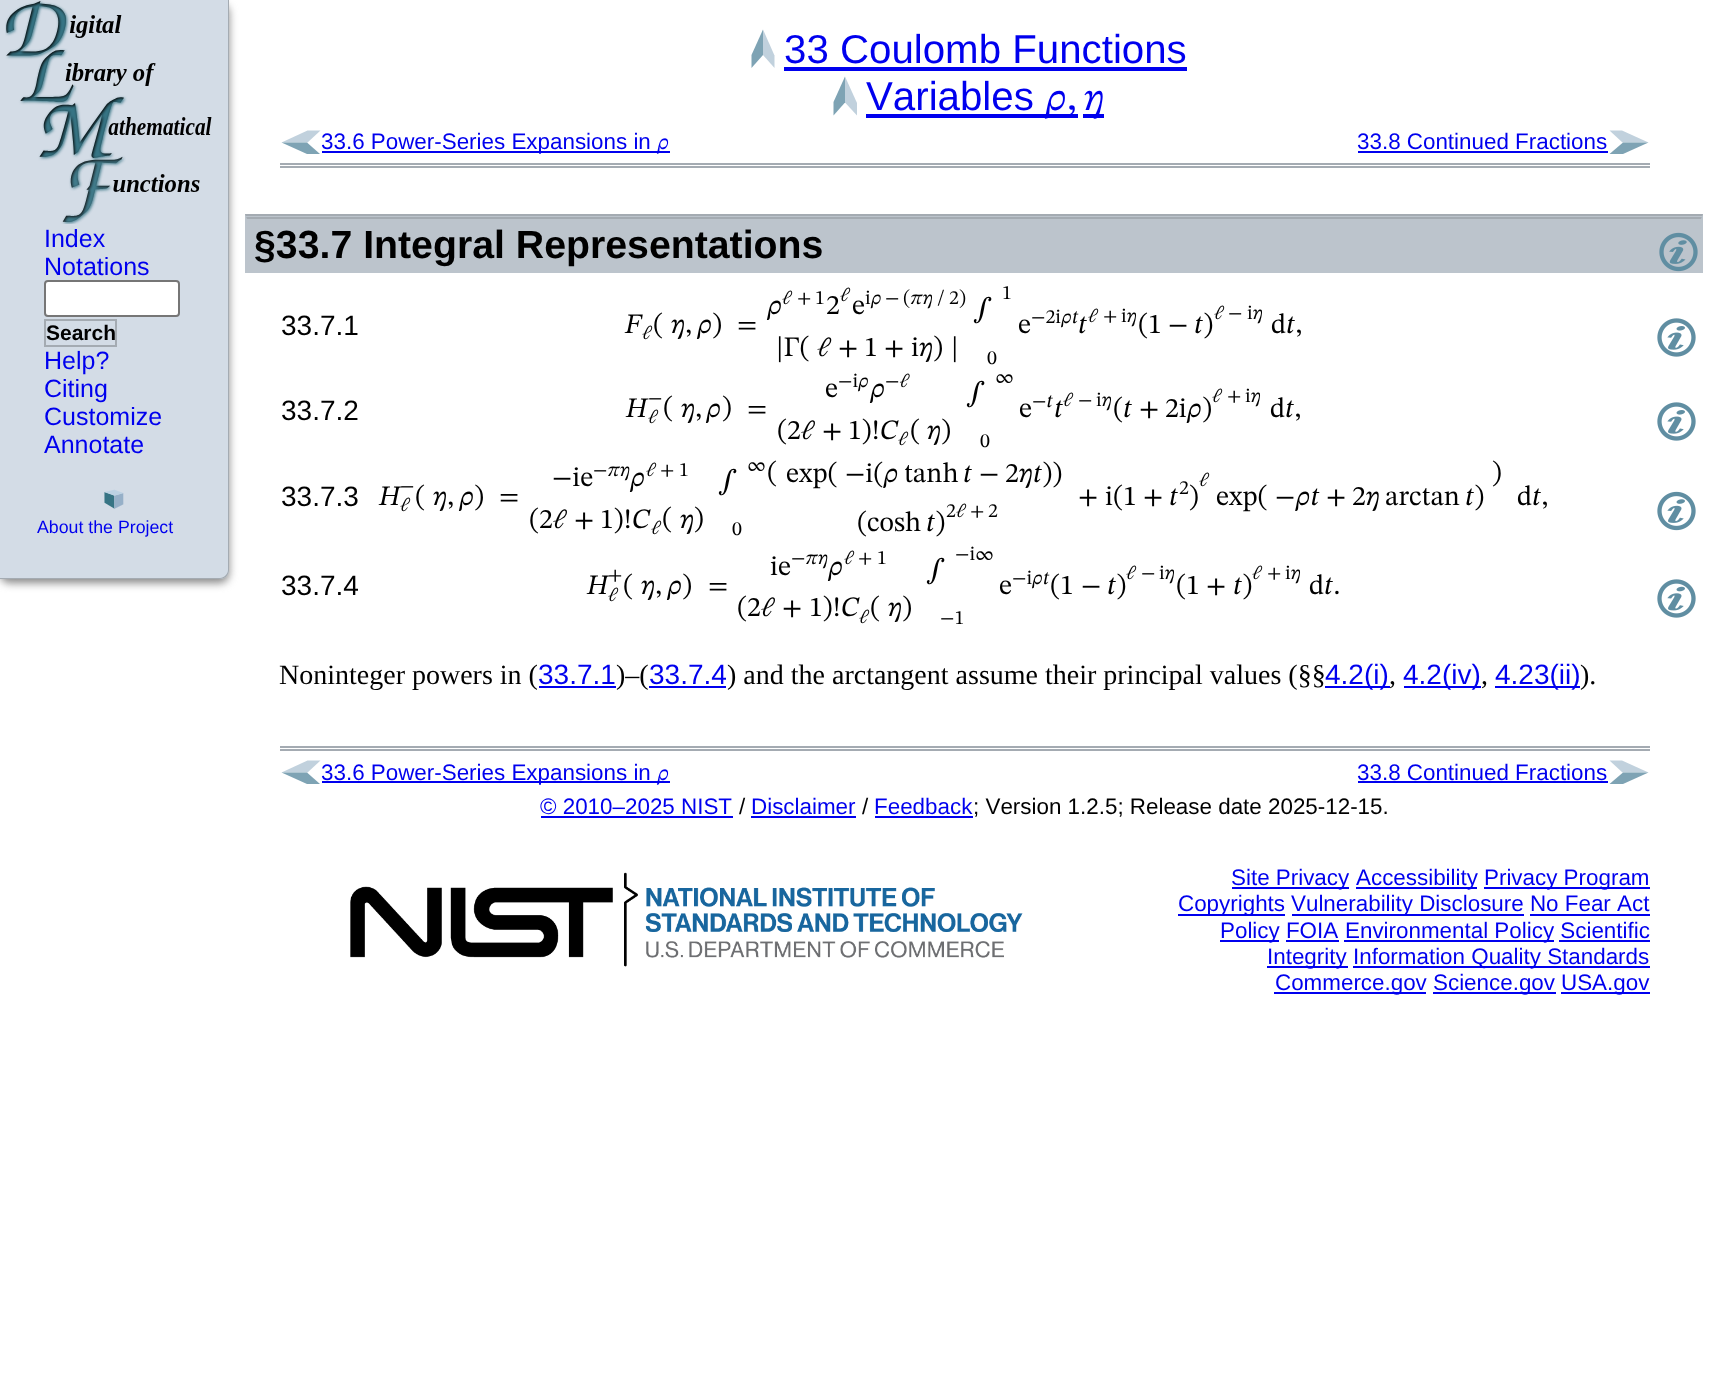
<svg xmlns="http://www.w3.org/2000/svg" width="1727" height="1383" viewBox="0 0 1727 1383">
  <style>*{font-kerning:none!important;font-variant-ligatures:none!important}</style>
  <rect width="100%" height="100%" fill="rgb(255,255,255)"/>
  <rect x="0" y="4" width="229" height="579" rx="9" fill="rgb(136,136,136)" filter="blur(4.5px)"/>
  <path d="M0 0H229V570C229 575 225 579 220 579H0Z" fill="rgb(211,220,230)"/>
  <path d="M0 0H229V570C229 575 225 579 220 579H0ZM0 0H228V570C228 574 224 578 220 578H0Z" fill="rgb(164,171,178)" fill-rule="evenodd"/>
  <image x="5" y="0" width="207" height="224" href="pic1.png"/>
  <g font-family="Liberation Sans" font-size="25" fill="rgb(0,0,238)">
    <text>
      <tspan x="44" y="247">Index</tspan>
      <tspan x="44" y="275">Notations</tspan>
    </text>
  </g>
  <rect x="45" y="281" width="134" height="35" rx="3" fill="rgb(255,255,255)" stroke="rgb(118,118,118)" stroke-width="2"/>
  <rect x="45" y="320" width="71" height="26" fill="none" stroke="rgb(164,171,178)" stroke-width="2"/>
  <text x="46" y="340" font-family="Liberation Sans" font-size="21" font-weight="bold" fill="rgb(0,0,0)">Search</text>
  <g font-family="Liberation Sans" font-size="25" fill="rgb(0,0,238)">
    <text>
      <tspan x="44" y="369">Help?</tspan>
      <tspan x="44" y="397">Citing</tspan>
      <tspan x="44" y="425">Customize</tspan>
      <tspan x="44" y="453">Annotate</tspan>
    </text>
  </g>
  <image x="104" y="489" width="20" height="20" href="pic2.png"/>
  <text x="37" y="533" font-family="Liberation Sans" font-size="17.75" fill="rgb(0,0,238)">About the Project</text>
  <rect x="280" y="163" width="1370" height="2" fill="rgb(164,171,178)"/>
  <rect x="280" y="166" width="1370" height="2" fill="rgb(164,171,178)"/>
  <path d="M774.5 55.5V68L763 55V29.5Z" fill="rgb(193,209,221)"/>
  <path d="M751.5 55V68L763 55V29.5Z" fill="rgb(126,163,180)"/>
  <text x="784" y="63" font-family="Liberation Sans" font-size="40.25" fill="rgb(0,0,238)">33 Coulomb Functions</text>
  <rect x="784" y="67" width="403" height="4" fill="rgb(0,0,238)"/>
  <path d="M857 103V115.5L845 102.5V76.5Z" fill="rgb(193,209,221)"/>
  <path d="M833.5 102V115.5L845 102.5V76.5Z" fill="rgb(126,163,180)"/>
  <text x="866" y="110" font-family="Liberation Sans" font-size="40.25" fill="rgb(0,0,238)">Variables</text>
  <rect x="866" y="114" width="212" height="4" fill="rgb(0,0,238)"/>
  <text x="1045" y="110" font-family="STIX Two Math" font-size="40.25" fill="rgb(0,0,238)">𝜌,</text>
  <rect x="1083" y="114" width="21" height="4" fill="rgb(0,0,238)"/>
  <text x="1084" y="110" font-family="STIX Two Math" font-size="40.25" fill="rgb(0,0,238)">𝜂</text>
  <path d="M307.5 130.5H320.5L307.5 142.5H281.5Z" fill="rgb(193,209,221)"/>
  <path d="M307 154H320L307 142.5H281.5Z" fill="rgb(126,163,180)"/>
  <rect x="322" y="151" width="348" height="2" fill="rgb(0,0,238)"/>
  <text x="321" y="149" font-family="Liberation Sans" font-size="22.4" fill="rgb(0,0,238)">33.6 Power-Series Expansions in</text>
  <text x="657" y="149" font-family="STIX Two Math" font-size="22.4" fill="rgb(0,0,238)">𝜌</text>
  <text x="1357" y="149" font-family="Liberation Sans" font-size="22.4" fill="rgb(0,0,238)">33.8 Continued Fractions</text>
  <rect x="1358" y="151" width="250" height="2" fill="rgb(0,0,238)"/>
  <path d="M1622 130.5H1609.5L1622.5 142.5H1648.5Z" fill="rgb(193,209,221)"/>
  <path d="M1623 154H1609.5L1623 142.5H1648.5Z" fill="rgb(126,163,180)"/>
  <rect x="245" y="216" width="1458" height="57" fill="rgb(188,196,204)"/>
  <rect x="245" y="214" width="1458" height="2" fill="rgb(164,171,178)"/>
  <rect x="245" y="217" width="1458" height="2" fill="rgb(164,171,178)"/>
  <path d="M1703 214V273L1701 271V219Z" fill="rgb(188,196,204)"/>
  <path d="M245 273V214L247 219V271Z" fill="rgb(188,196,204)"/>
  <text x="254" y="258" font-family="Liberation Sans" font-size="39.25" font-weight="bold" fill="rgb(0,0,0)">§33.7 Integral Representations</text>
  <image x="1659" y="232" width="39" height="40" href="pic3.png"/>
  <text x="281" y="335" font-family="Liberation Sans" font-size="28" fill="rgb(0,0,0)">33.7.1</text>
  <text x="625" y="333" font-family="STIX Two Math" font-size="28" fill="rgb(0,0,0)">𝐹</text>
  <text x="642" y="339" font-family="STIX Two Math" font-size="20" fill="rgb(0,0,0)">ℓ</text>
  <g font-family="STIX Two Math" font-size="28" fill="rgb(0,0,0)">
    <text x="653" y="333">(</text>
    <text x="671" y="333">𝜂,</text>
    <text x="697" y="333">𝜌)</text>
    <text x="737" y="333">=</text>
  </g>
  <g font-family="STIX Two Math" font-size="20" fill="rgb(0,0,0)">
    <text x="782" y="304">ℓ</text>
    <text x="797" y="304">+</text>
    <text x="815" y="304">1</text>
  </g>
  <text x="767" y="314" font-family="STIX Two Math" font-size="28" fill="rgb(0,0,0)">𝜌</text>
  <text x="840" y="301" font-family="STIX Two Math" font-size="20" fill="rgb(0,0,0)">ℓ</text>
  <g font-family="STIX Two Math" font-size="28" fill="rgb(0,0,0)">
    <text x="826" y="314">2</text>
    <text x="852" y="314">e</text>
  </g>
  <g font-family="STIX Two Math" font-size="20" fill="rgb(0,0,0)">
    <text x="865" y="304">i𝜌</text>
    <text x="885" y="304">−</text>
    <text x="903" y="304">(𝜋𝜂</text>
    <text x="937" y="304">/</text>
    <text x="949" y="304">2)</text>
  </g>
  <g font-family="STIX Two Math" font-size="28" fill="rgb(0,0,0)">
    <text x="776" y="356">|Γ(</text>
    <text x="817" y="356">ℓ</text>
    <text x="838" y="356">+</text>
    <text x="864" y="356">1</text>
    <text x="884" y="356">+</text>
    <text x="911" y="356">i𝜂)</text>
    <text x="951" y="356">|</text>
  </g>
  <text x="1002" y="299" font-family="STIX Two Math" font-size="20" fill="rgb(0,0,0)">1</text>
  <text x="973" y="317" font-family="STIX Two Math" font-size="28" fill="rgb(0,0,0)">∫</text>
  <text x="987" y="364" font-family="STIX Two Math" font-size="20" fill="rgb(0,0,0)">0</text>
  <text x="1018" y="333" font-family="STIX Two Math" font-size="28" fill="rgb(0,0,0)">e</text>
  <text x="1031" y="323" font-family="STIX Two Math" font-size="20" fill="rgb(0,0,0)">−2i𝜌𝑡</text>
  <text x="1078" y="333" font-family="STIX Two Math" font-size="28" fill="rgb(0,0,0)">𝑡</text>
  <g font-family="STIX Two Math" font-size="20" fill="rgb(0,0,0)">
    <text x="1088" y="322">ℓ</text>
    <text x="1103" y="322">+</text>
    <text x="1121" y="322">i𝜂</text>
  </g>
  <g font-family="STIX Two Math" font-size="28" fill="rgb(0,0,0)">
    <text x="1138" y="333">(1</text>
    <text x="1168" y="333">−</text>
    <text x="1194" y="333">𝑡)</text>
  </g>
  <g font-family="STIX Two Math" font-size="20" fill="rgb(0,0,0)">
    <text x="1214" y="319">ℓ</text>
    <text x="1228" y="319">−</text>
    <text x="1247" y="319">i𝜂</text>
  </g>
  <text x="1271" y="333" font-family="STIX Two Math" font-size="28" fill="rgb(0,0,0)">d𝑡,</text>
  <image x="1657" y="318" width="39" height="39" href="pic4.png"/>
  <text x="281" y="420" font-family="Liberation Sans" font-size="28" fill="rgb(0,0,0)">33.7.2</text>
  <text x="626" y="417" font-family="STIX Two Math" font-size="28" fill="rgb(0,0,0)">𝐻</text>
  <g font-family="STIX Two Math" font-size="20" fill="rgb(0,0,0)">
    <text>
      <tspan x="648" y="404">−</tspan>
      <tspan x="648" y="423">ℓ</tspan>
    </text>
  </g>
  <g font-family="STIX Two Math" font-size="28" fill="rgb(0,0,0)">
    <text x="663" y="416">(</text>
    <text x="681" y="417">𝜂,</text>
    <text x="706" y="417">𝜌</text>
    <text x="722" y="416">)</text>
    <text x="747" y="417">=</text>
    <text x="825" y="397">e</text>
  </g>
  <g font-family="STIX Two Math" font-size="20" fill="rgb(0,0,0)">
    <text x="838" y="387">−i𝜌</text>
    <text x="885" y="387">−ℓ</text>
  </g>
  <g font-family="STIX Two Math" font-size="28" fill="rgb(0,0,0)">
    <text x="870" y="397">𝜌</text>
    <text x="777" y="439">(2ℓ</text>
    <text x="822" y="439">+</text>
    <text x="848" y="439">1)!𝐶</text>
  </g>
  <text x="898" y="445" font-family="STIX Two Math" font-size="20" fill="rgb(0,0,0)">ℓ</text>
  <g font-family="STIX Two Math" font-size="28" fill="rgb(0,0,0)">
    <text x="910" y="439">(</text>
    <text x="927" y="439">𝜂)</text>
  </g>
  <text x="995" y="383" font-family="STIX Two Math" font-size="20" fill="rgb(0,0,0)">∞</text>
  <text x="966" y="401" font-family="STIX Two Math" font-size="28" fill="rgb(0,0,0)">∫</text>
  <g font-family="STIX Two Math" font-size="20" fill="rgb(0,0,0)">
    <text x="980" y="447">0</text>
    <text x="1032" y="407">−𝑡</text>
  </g>
  <g font-family="STIX Two Math" font-size="28" fill="rgb(0,0,0)">
    <text x="1019" y="417">e</text>
    <text x="1054" y="417">𝑡</text>
  </g>
  <g font-family="STIX Two Math" font-size="20" fill="rgb(0,0,0)">
    <text x="1063" y="406">ℓ</text>
    <text x="1078" y="406">−</text>
    <text x="1096" y="406">i𝜂</text>
  </g>
  <g font-family="STIX Two Math" font-size="28" fill="rgb(0,0,0)">
    <text x="1113" y="417">(𝑡</text>
    <text x="1139" y="417">+</text>
    <text x="1165" y="417">2i𝜌)</text>
  </g>
  <g font-family="STIX Two Math" font-size="20" fill="rgb(0,0,0)">
    <text x="1212" y="402">ℓ</text>
    <text x="1227" y="402">+</text>
    <text x="1245" y="402">i𝜂</text>
  </g>
  <text x="1270" y="417" font-family="STIX Two Math" font-size="28" fill="rgb(0,0,0)">d𝑡,</text>
  <image x="1657" y="402" width="39" height="39" href="pic4.png"/>
  <text x="281" y="506" font-family="Liberation Sans" font-size="28" fill="rgb(0,0,0)">33.7.3</text>
  <text x="379" y="505" font-family="STIX Two Math" font-size="28" fill="rgb(0,0,0)">𝐻</text>
  <g font-family="STIX Two Math" font-size="20" fill="rgb(0,0,0)">
    <text>
      <tspan x="400" y="492">−</tspan>
      <tspan x="400" y="511">ℓ</tspan>
    </text>
  </g>
  <g font-family="STIX Two Math" font-size="28" fill="rgb(0,0,0)">
    <text x="415" y="505">(</text>
    <text x="433" y="505">𝜂,</text>
    <text x="459" y="505">𝜌)</text>
    <text x="499" y="505">=</text>
    <text x="552" y="486">−ie</text>
  </g>
  <g font-family="STIX Two Math" font-size="20" fill="rgb(0,0,0)">
    <text x="593" y="476">−𝜋𝜂</text>
    <text x="646" y="476">ℓ</text>
    <text x="660" y="476">+</text>
    <text x="679" y="476">1</text>
  </g>
  <g font-family="STIX Two Math" font-size="28" fill="rgb(0,0,0)">
    <text x="630" y="486">𝜌</text>
    <text x="529" y="528">(2ℓ</text>
    <text x="574" y="528">+</text>
    <text x="600" y="528">1)!𝐶</text>
  </g>
  <text x="651" y="534" font-family="STIX Two Math" font-size="20" fill="rgb(0,0,0)">ℓ</text>
  <g font-family="STIX Two Math" font-size="28" fill="rgb(0,0,0)">
    <text x="662" y="527">(</text>
    <text x="680" y="528">𝜂</text>
    <text x="694" y="527">)</text>
  </g>
  <text x="747" y="471" font-family="STIX Two Math" font-size="20" fill="rgb(0,0,0)">∞</text>
  <text x="718" y="489" font-family="STIX Two Math" font-size="28" fill="rgb(0,0,0)">∫</text>
  <text x="732" y="535" font-family="STIX Two Math" font-size="20" fill="rgb(0,0,0)">0</text>
  <g font-family="STIX Two Math" font-size="28" fill="rgb(0,0,0)">
    <text x="767" y="481">(</text>
    <text x="786" y="482">exp(</text>
    <text x="845" y="482">−i(𝜌</text>
    <text x="904" y="482">tanh</text>
    <text x="963" y="482">𝑡</text>
    <text x="979" y="482">−</text>
    <text x="1005" y="482">2𝜂𝑡))</text>
    <text x="857" y="531">(cosh</text>
    <text x="926" y="531">𝑡)</text>
  </g>
  <g font-family="STIX Two Math" font-size="20" fill="rgb(0,0,0)">
    <text x="946" y="517">2ℓ</text>
    <text x="970" y="517">+</text>
    <text x="988" y="517">2</text>
  </g>
  <g font-family="STIX Two Math" font-size="28" fill="rgb(0,0,0)">
    <text x="1078" y="505">+</text>
    <text x="1105" y="505">i(1</text>
  </g>
  <text x="1199" y="486" font-family="STIX Two Math" font-size="20" fill="rgb(0,0,0)">ℓ</text>
  <g font-family="STIX Two Math" font-size="28" fill="rgb(0,0,0)">
    <text x="1143" y="505">+</text>
    <text x="1169" y="505">𝑡</text>
  </g>
  <text x="1179" y="494" font-family="STIX Two Math" font-size="20" fill="rgb(0,0,0)">2</text>
  <g font-family="STIX Two Math" font-size="28" fill="rgb(0,0,0)">
    <text x="1189" y="505">)</text>
    <text x="1216" y="505">exp(</text>
    <text x="1275" y="505">−𝜌𝑡</text>
    <text x="1326" y="505">+</text>
    <text x="1352" y="505">2𝜂</text>
    <text x="1385" y="505">arctan</text>
    <text x="1465" y="505">𝑡)</text>
    <text x="1492" y="481">)</text>
    <text x="1517" y="505">d𝑡,</text>
  </g>
  <image x="1657" y="491" width="39" height="40" href="pic5.png"/>
  <text x="281" y="595" font-family="Liberation Sans" font-size="28" fill="rgb(0,0,0)">33.7.4</text>
  <text x="587" y="594" font-family="STIX Two Math" font-size="28" fill="rgb(0,0,0)">𝐻</text>
  <g font-family="STIX Two Math" font-size="20" fill="rgb(0,0,0)">
    <text>
      <tspan x="608" y="581">+</tspan>
      <tspan x="608" y="601">ℓ</tspan>
    </text>
  </g>
  <g font-family="STIX Two Math" font-size="28" fill="rgb(0,0,0)">
    <text x="623" y="594">(</text>
    <text x="641" y="594">𝜂,</text>
    <text x="667" y="594">𝜌)</text>
    <text x="708" y="594">=</text>
    <text x="770" y="575">ie</text>
  </g>
  <g font-family="STIX Two Math" font-size="20" fill="rgb(0,0,0)">
    <text x="791" y="564">−𝜋𝜂</text>
    <text x="844" y="564">ℓ</text>
    <text x="858" y="564">+</text>
    <text x="877" y="564">1</text>
  </g>
  <g font-family="STIX Two Math" font-size="28" fill="rgb(0,0,0)">
    <text x="828" y="575">𝜌</text>
    <text x="737" y="616">(2ℓ</text>
    <text x="782" y="616">+</text>
    <text x="809" y="616">1)!𝐶</text>
  </g>
  <text x="859" y="623" font-family="STIX Two Math" font-size="20" fill="rgb(0,0,0)">ℓ</text>
  <g font-family="STIX Two Math" font-size="28" fill="rgb(0,0,0)">
    <text x="870" y="616">(</text>
    <text x="888" y="616">𝜂)</text>
  </g>
  <text x="955" y="560" font-family="STIX Two Math" font-size="20" fill="rgb(0,0,0)">−i∞</text>
  <text x="926" y="578" font-family="STIX Two Math" font-size="28" fill="rgb(0,0,0)">∫</text>
  <text x="940" y="624" font-family="STIX Two Math" font-size="20" fill="rgb(0,0,0)">−1</text>
  <text x="999" y="594" font-family="STIX Two Math" font-size="28" fill="rgb(0,0,0)">e</text>
  <text x="1012" y="584" font-family="STIX Two Math" font-size="20" fill="rgb(0,0,0)">−i𝜌𝑡</text>
  <g font-family="STIX Two Math" font-size="28" fill="rgb(0,0,0)">
    <text x="1050" y="594">(1</text>
    <text x="1081" y="594">−</text>
    <text x="1107" y="594">𝑡)</text>
  </g>
  <g font-family="STIX Two Math" font-size="20" fill="rgb(0,0,0)">
    <text x="1126" y="579">ℓ</text>
    <text x="1141" y="579">−</text>
    <text x="1159" y="579">i𝜂</text>
  </g>
  <g font-family="STIX Two Math" font-size="28" fill="rgb(0,0,0)">
    <text x="1176" y="594">(1</text>
    <text x="1206" y="594">+</text>
    <text x="1233" y="594">𝑡)</text>
  </g>
  <g font-family="STIX Two Math" font-size="20" fill="rgb(0,0,0)">
    <text x="1252" y="579">ℓ</text>
    <text x="1267" y="579">+</text>
    <text x="1285" y="579">i𝜂</text>
  </g>
  <text x="1309" y="594" font-family="STIX Two Math" font-size="28" fill="rgb(0,0,0)">d𝑡.</text>
  <image x="1657" y="579" width="39" height="39" href="pic6.png"/>
  <text x="279" y="684" font-family="Liberation Serif" font-size="28" fill="rgb(0,0,0)">Noninteger powers in (</text>
  <text x="538" y="684" font-family="Liberation Sans" font-size="28" fill="rgb(0,0,238)">33.7.1</text>
  <rect x="539" y="686" width="77" height="2" fill="rgb(0,0,238)"/>
  <text x="616" y="684" font-family="Liberation Serif" font-size="28" fill="rgb(0,0,0)">)–(</text>
  <text x="649" y="684" font-family="Liberation Sans" font-size="28" fill="rgb(0,0,238)">33.7.4</text>
  <rect x="649" y="686" width="77" height="2" fill="rgb(0,0,238)"/>
  <text x="727" y="684" font-family="Liberation Serif" font-size="28" fill="rgb(0,0,0)">) and the arctangent assume their principal values (§§</text>
  <rect x="1325" y="686" width="65" height="2" fill="rgb(0,0,238)"/>
  <text x="1325" y="684" font-family="Liberation Sans" font-size="28" fill="rgb(0,0,238)">4.2(i)</text>
  <text x="1389" y="684" font-family="Liberation Serif" font-size="28" fill="rgb(0,0,0)">,</text>
  <rect x="1404" y="686" width="77" height="2" fill="rgb(0,0,238)"/>
  <text x="1403" y="684" font-family="Liberation Sans" font-size="28" fill="rgb(0,0,238)">4.2(iv)</text>
  <text x="1481" y="684" font-family="Liberation Serif" font-size="28" fill="rgb(0,0,0)">,</text>
  <rect x="1495" y="686" width="85" height="2" fill="rgb(0,0,238)"/>
  <text x="1495" y="684" font-family="Liberation Sans" font-size="28" fill="rgb(0,0,238)">4.23(ii)</text>
  <text x="1580" y="684" font-family="Liberation Serif" font-size="28" fill="rgb(0,0,0)">).</text>
  <rect x="280" y="746" width="1370" height="2" fill="rgb(164,171,178)"/>
  <rect x="280" y="749" width="1370" height="2" fill="rgb(164,171,178)"/>
  <path d="M307.5 760.5H320.5L307.5 772.5H281.5Z" fill="rgb(193,209,221)"/>
  <path d="M307 784H320L307 772.5H281.5Z" fill="rgb(126,163,180)"/>
  <rect x="322" y="781" width="348" height="2" fill="rgb(0,0,238)"/>
  <text x="321" y="780" font-family="Liberation Sans" font-size="22.4" fill="rgb(0,0,238)">33.6 Power-Series Expansions in</text>
  <text x="657" y="780" font-family="STIX Two Math" font-size="22.4" fill="rgb(0,0,238)">𝜌</text>
  <text x="1357" y="780" font-family="Liberation Sans" font-size="22.4" fill="rgb(0,0,238)">33.8 Continued Fractions</text>
  <rect x="1358" y="781" width="250" height="2" fill="rgb(0,0,238)"/>
  <path d="M1622 760.5H1609.5L1622.5 772.5H1648.5Z" fill="rgb(193,209,221)"/>
  <path d="M1623 784H1609.5L1623 772.5H1648.5Z" fill="rgb(126,163,180)"/>
  <text x="540" y="814" font-family="Liberation Sans" font-size="22.4" fill="rgb(0,0,238)">© 2010–2025 NIST</text>
  <rect x="541" y="816" width="192" height="2" fill="rgb(0,0,238)"/>
  <text x="739" y="814" font-family="Liberation Sans" font-size="22.4" fill="rgb(0,0,0)">/</text>
  <text x="751" y="814" font-family="Liberation Sans" font-size="22.4" fill="rgb(0,0,238)">Disclaimer</text>
  <rect x="751" y="816" width="105" height="2" fill="rgb(0,0,238)"/>
  <text x="862" y="814" font-family="Liberation Sans" font-size="22.4" fill="rgb(0,0,0)">/</text>
  <text x="874" y="814" font-family="Liberation Sans" font-size="22.4" fill="rgb(0,0,238)">Feedback</text>
  <rect x="875" y="816" width="98" height="2" fill="rgb(0,0,238)"/>
  <text x="973" y="814" font-family="Liberation Sans" font-size="22.4" fill="rgb(0,0,0)">; Version 1.2.5; Release date 2025-12-15.</text>
  <image x="350" y="872" width="673" height="95" href="pic7.png"/>
  <rect x="1232" y="887" width="117" height="2" fill="rgb(0,0,238)"/>
  <text x="1231" y="885" font-family="Liberation Sans" font-size="22.4" fill="rgb(0,0,238)">Site Privacy</text>
  <rect x="1356" y="887" width="121" height="2" fill="rgb(0,0,238)"/>
  <text x="1356" y="885" font-family="Liberation Sans" font-size="22.4" fill="rgb(0,0,238)">Accessibility</text>
  <rect x="1484" y="887" width="166" height="2" fill="rgb(0,0,238)"/>
  <text x="1484" y="885" font-family="Liberation Sans" font-size="22.4" fill="rgb(0,0,238)">Privacy Program</text>
  <rect x="1178" y="914" width="107" height="2" fill="rgb(0,0,238)"/>
  <text x="1178" y="911" font-family="Liberation Sans" font-size="22.4" fill="rgb(0,0,238)">Copyrights</text>
  <rect x="1292" y="914" width="232" height="2" fill="rgb(0,0,238)"/>
  <text x="1291" y="911" font-family="Liberation Sans" font-size="22.4" fill="rgb(0,0,238)">Vulnerability Disclosure No Fear Act</text>
  <rect x="1220" y="940" width="59" height="2" fill="rgb(0,0,238)"/>
  <text x="1220" y="938" font-family="Liberation Sans" font-size="22.4" fill="rgb(0,0,238)">Policy FOIA</text>
  <rect x="1530" y="914" width="120" height="2" fill="rgb(0,0,238)"/>
  <rect x="1344" y="940" width="210" height="2" fill="rgb(0,0,238)"/>
  <text x="1345" y="938" font-family="Liberation Sans" font-size="22.4" fill="rgb(0,0,238)">Environmental Policy Scientific</text>
  <rect x="1286" y="940" width="53" height="2" fill="rgb(0,0,238)"/>
  <rect x="1267" y="966" width="81" height="2" fill="rgb(0,0,238)"/>
  <text x="1267" y="964" font-family="Liberation Sans" font-size="22.4" fill="rgb(0,0,238)">Integrity</text>
  <rect x="1559" y="940" width="91" height="2" fill="rgb(0,0,238)"/>
  <rect x="1353" y="966" width="297" height="2" fill="rgb(0,0,238)"/>
  <text x="1353" y="964" font-family="Liberation Sans" font-size="22.4" fill="rgb(0,0,238)">Information Quality Standards</text>
  <rect x="1274" y="992" width="152" height="2" fill="rgb(0,0,238)"/>
  <text x="1275" y="990" font-family="Liberation Sans" font-size="22.4" fill="rgb(0,0,238)">Commerce.gov</text>
  <rect x="1433" y="992" width="123" height="2" fill="rgb(0,0,238)"/>
  <text x="1433" y="990" font-family="Liberation Sans" font-size="22.4" fill="rgb(0,0,238)">Science.gov</text>
  <rect x="1561" y="992" width="89" height="2" fill="rgb(0,0,238)"/>
  <text x="1561" y="990" font-family="Liberation Sans" font-size="22.4" fill="rgb(0,0,238)">USA.gov</text>
</svg>
